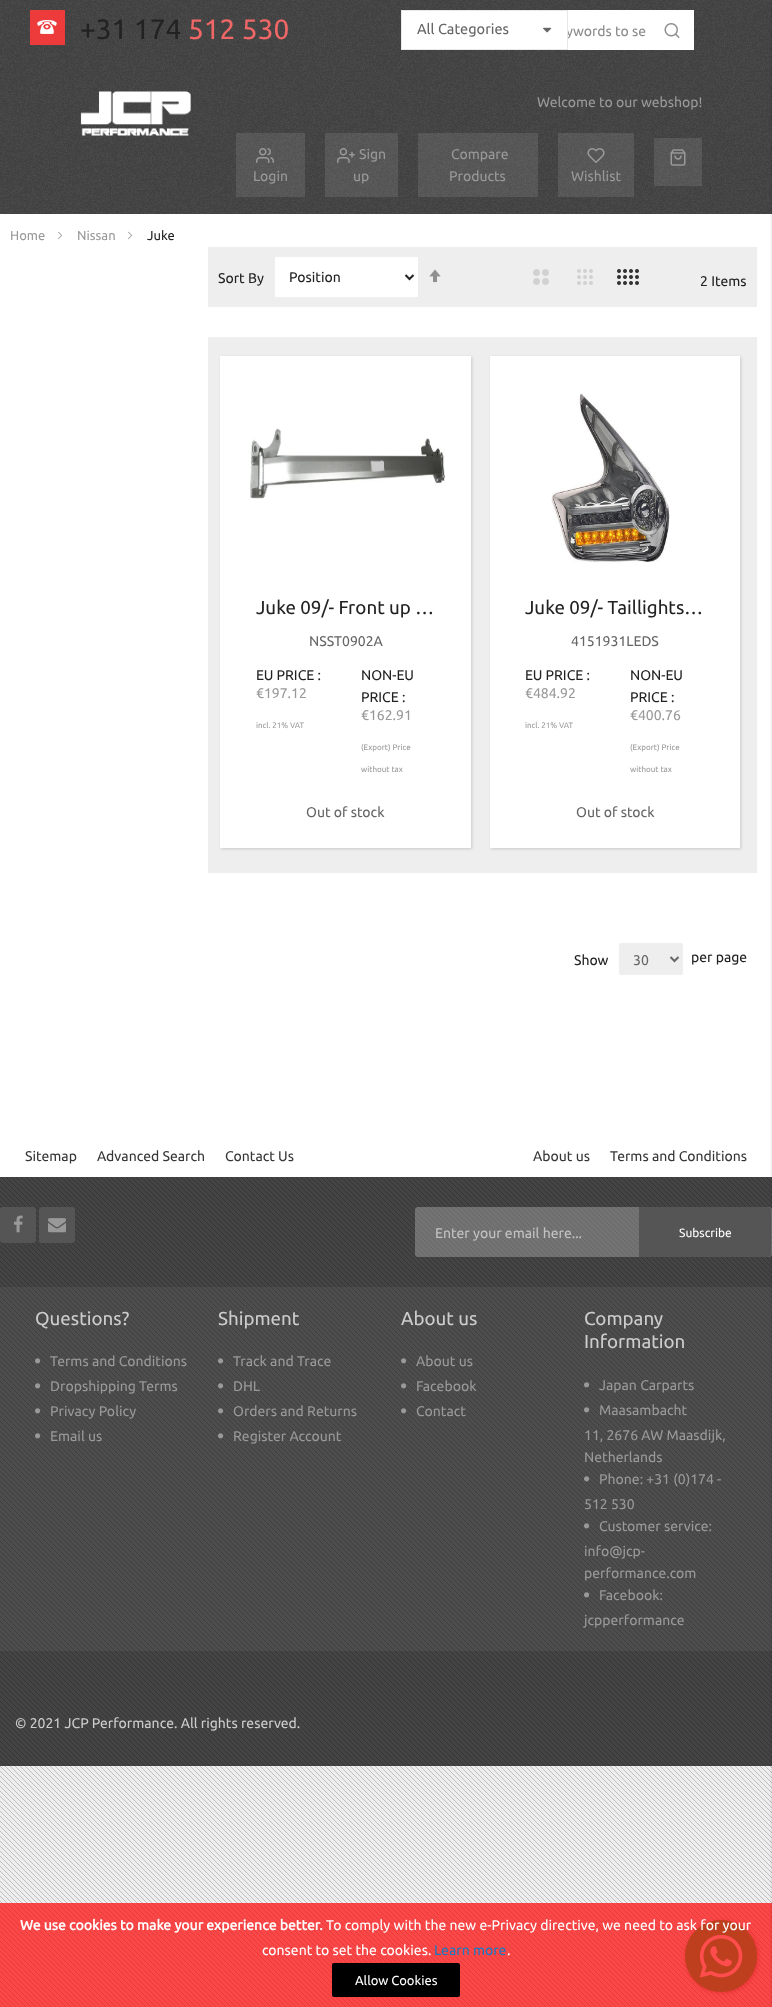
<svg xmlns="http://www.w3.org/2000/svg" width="772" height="2007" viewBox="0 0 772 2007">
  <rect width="100%" height="100%" fill="rgb(238,238,238)"/>
  <image x="0" y="1766" width="772" height="241" href="pic1.png"/>
  <rect x="0" y="0" width="772" height="214" fill="rgb(68,68,68)"/>
  <image x="0" y="0" width="772" height="214" href="pic2.png"/>
  <rect x="30" y="10" width="35" height="35" fill="rgb(237,59,59)"/>
  <image x="37" y="20" width="20" height="14" href="pic3.png"/>
  <text x="80" y="39" font-family="Ubuntu" font-size="28" fill="rgb(34,34,34)">+31 174</text>
  <text x="188" y="39" font-family="Ubuntu" font-size="28" fill="rgb(241,103,103)">512 530</text>
  <rect x="568" y="10" width="126" height="40" fill="rgb(255,255,255)"/>
  <text x="566" y="36" font-family="Ubuntu" font-size="14" fill="rgb(140,140,140)">ywords to se</text>
  <rect x="401.5" y="10.5" width="166" height="39" fill="rgb(255,255,255)" stroke="rgb(232,232,232)"/>
  <text x="417" y="34" font-family="Ubuntu" font-size="14.5" fill="rgb(102,102,102)">All Categories</text>
  <image x="543" y="27" width="9" height="6" href="pic4.png"/>
  <image x="664" y="23" width="16" height="15" href="pic5.png"/>
  <image x="80" y="91" width="111" height="45" href="pic6.png"/>
  <text x="537" y="107" font-family="Ubuntu" font-size="14" fill="rgb(153,153,153)">Welcome to our webshop!</text>
  <rect x="236" y="133" width="69" height="64" fill="rgba(255,255,255,0.1)"/>
  <image x="256" y="148" width="18" height="15" href="pic7.png"/>
  <text x="253" y="181" font-family="Ubuntu" font-size="14" fill="rgb(153,153,153)">Login</text>
  <rect x="325" y="133" width="73" height="64" fill="rgba(255,255,255,0.1)"/>
  <image x="337" y="148" width="18" height="15" href="pic8.png"/>
  <g font-family="Ubuntu" font-size="14" fill="rgb(153,153,153)">
    <text x="359" y="159">Sign</text>
    <text x="353" y="181">up</text>
  </g>
  <rect x="418" y="133" width="120" height="64" fill="rgba(255,255,255,0.1)"/>
  <g font-family="Ubuntu" font-size="14" fill="rgb(153,153,153)">
    <text x="451" y="159">Compare</text>
    <text x="449" y="181">Products</text>
  </g>
  <rect x="558" y="133" width="76" height="64" fill="rgba(255,255,255,0.1)"/>
  <image x="587" y="148" width="18" height="15" href="pic9.png"/>
  <text x="571" y="181" font-family="Ubuntu" font-size="14" fill="rgb(153,153,153)">Wishlist</text>
  <rect x="654" y="138" width="48" height="48" fill="rgba(255,255,255,0.1)"/>
  <image x="670" y="149" width="16" height="17" href="pic10.png"/>
  <rect x="0" y="214" width="772" height="963" fill="rgb(255,255,255)"/>
  <rect x="0" y="1177" width="772" height="589" fill="rgb(68,68,68)"/>
  <image x="0" y="1177" width="772" height="589" href="pic18.png"/>
  <rect x="415" y="1207" width="357" height="50" rx="3" fill="rgba(255,255,255,0.25)"/>
  <path d="M639 1207H768C769.5 1207 771 1208.5 771 1210V1254C771 1255.5 769.5 1257 768 1257H639Z" fill="rgb(85,85,85)"/>
  <rect x="0" y="1287" width="772" height="364" fill="rgba(255,255,255,0.05)"/>
  <rect x="686" y="1921" width="72" height="72" rx="36" fill="rgba(60,60,60,0.4)" filter="blur(2px)"/>
  <image x="685" y="1920" width="72" height="72" href="pic25.png"/>
  <rect x="0" y="1903" width="772" height="104" fill="rgba(255,0,0,0.7)"/>
  <rect x="772" y="3" width="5" height="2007" fill="rgba(0,0,0,0.15)" filter="blur(1.5px)"/>
  <text x="10" y="240" font-family="Ubuntu" font-size="13" fill="rgb(153,153,153)">Home</text>
  <image x="57" y="231" width="6" height="9" href="pic11.png"/>
  <text x="77" y="240" font-family="Ubuntu" font-size="13" fill="rgb(153,153,153)">Nissan</text>
  <image x="127" y="231" width="6" height="9" href="pic11.png"/>
  <text x="147" y="240" font-family="Ubuntu" font-size="13" fill="rgb(34,34,34)">Juke</text>
  <rect x="208" y="247" width="549" height="60" fill="rgb(238,238,238)"/>
  <text x="218" y="283" font-family="Ubuntu" font-size="14" fill="rgb(34,34,34)">Sort By</text>
  <rect x="275" y="257" width="143" height="40" rx="1" fill="rgb(255,255,255)"/>
  <path d="M405.5 275L409.5 279L413.5 275" fill="none" stroke="rgb(34,34,34)" stroke-width="2"/>
  <text x="289" y="282" font-family="Ubuntu" font-size="14" fill="rgb(34,34,34)">Position</text>
  <image x="429" y="269" width="12" height="14" href="pic12.png"/>
  <image x="533" y="269" width="16" height="16" href="pic13.png"/>
  <image x="577" y="269" width="16" height="16" href="pic14.png"/>
  <image x="617" y="269" width="22" height="16" href="pic15.png"/>
  <text x="700" y="286" font-family="Ubuntu" font-size="14" fill="rgb(34,34,34)">2 Items</text>
  <rect x="208" y="337" width="549" height="536" fill="rgb(238,238,238)"/>
  <rect x="221" y="357" width="251" height="492" fill="rgba(0,0,0,0.15)" filter="blur(1.5px)"/>
  <rect x="220" y="356" width="251" height="492" fill="rgb(255,255,255)"/>
  <image x="250" y="428" width="195" height="71" href="pic16.png"/>
  <text x="256" y="614" font-family="Ubuntu" font-size="18.75" fill="rgb(34,34,34)">Juke 09/- Front up …</text>
  <text x="309" y="646" font-family="Ubuntu" font-size="14" fill="rgb(102,102,102)">NSST0902A</text>
  <text x="256" y="680" font-family="Ubuntu" font-size="14" fill="rgb(34,34,34)">EU PRICE :</text>
  <text x="256" y="698" font-family="Ubuntu" font-size="14" fill="rgb(153,153,153)">€197.12</text>
  <text x="256" y="728" font-family="Ubuntu" font-size="8" fill="rgb(153,153,153)">incl. 21% VAT</text>
  <g font-family="Ubuntu" font-size="14" fill="rgb(34,34,34)">
    <text>
      <tspan x="361" y="680">NON-EU</tspan>
      <tspan x="361" y="702">PRICE :</tspan>
    </text>
  </g>
  <text x="361" y="720" font-family="Ubuntu" font-size="14" fill="rgb(153,153,153)">€162.91</text>
  <g font-family="Ubuntu" font-size="8" fill="rgb(153,153,153)">
    <text x="361" y="750">(Export) Price</text>
    <text x="361" y="772">without tax</text>
  </g>
  <text x="306" y="817" font-family="Ubuntu" font-size="14" fill="rgb(102,102,102)">Out of stock</text>
  <rect x="491" y="357" width="250" height="492" fill="rgba(0,0,0,0.15)" filter="blur(1.5px)"/>
  <rect x="490" y="356" width="250" height="492" fill="rgb(255,255,255)"/>
  <image x="551" y="393" width="119" height="170" href="pic17.png"/>
  <text x="525" y="614" font-family="Ubuntu" font-size="18.75" fill="rgb(34,34,34)">Juke 09/- Taillights…</text>
  <text x="571" y="646" font-family="Ubuntu" font-size="14" fill="rgb(102,102,102)">4151931LEDS</text>
  <text x="525" y="680" font-family="Ubuntu" font-size="14" fill="rgb(34,34,34)">EU PRICE :</text>
  <text x="525" y="698" font-family="Ubuntu" font-size="14" fill="rgb(153,153,153)">€484.92</text>
  <text x="525" y="728" font-family="Ubuntu" font-size="8" fill="rgb(153,153,153)">incl. 21% VAT</text>
  <g font-family="Ubuntu" font-size="14" fill="rgb(34,34,34)">
    <text>
      <tspan x="630" y="680">NON-EU</tspan>
      <tspan x="630" y="702">PRICE :</tspan>
    </text>
  </g>
  <text x="630" y="720" font-family="Ubuntu" font-size="14" fill="rgb(153,153,153)">€400.76</text>
  <g font-family="Ubuntu" font-size="8" fill="rgb(153,153,153)">
    <text x="630" y="750">(Export) Price</text>
    <text x="630" y="772">without tax</text>
  </g>
  <text x="576" y="817" font-family="Ubuntu" font-size="14" fill="rgb(102,102,102)">Out of stock</text>
  <text x="574" y="965" font-family="Ubuntu" font-size="14" fill="rgb(34,34,34)">Show</text>
  <rect x="619" y="943" width="64" height="32" rx="2" fill="rgb(238,238,238)"/>
  <path d="M670.5 957L674.5 961L678.5 957" fill="none" stroke="rgb(102,102,102)" stroke-width="2"/>
  <text x="633" y="965" font-family="Ubuntu" font-size="14" fill="rgb(102,102,102)">30</text>
  <text x="691" y="962" font-family="Ubuntu" font-size="14" fill="rgb(34,34,34)">per page</text>
  <g font-family="Ubuntu" font-size="14" fill="rgb(55,55,55)">
    <text x="25" y="1161">Sitemap</text>
    <text x="97" y="1161">Advanced Search</text>
    <text x="225" y="1161">Contact Us</text>
    <text x="533" y="1161">About us</text>
    <text x="610" y="1161">Terms and Conditions</text>
  </g>
  <rect x="0" y="1207" width="36" height="36" rx="3" fill="rgb(85,85,85)"/>
  <image x="14" y="1215" width="9" height="18" href="pic19.png"/>
  <rect x="39" y="1207" width="36" height="36" rx="3" fill="rgb(85,85,85)"/>
  <image x="48" y="1218" width="18" height="15" href="pic20.png"/>
  <text x="435" y="1238" font-family="Ubuntu" font-size="14" fill="rgb(194,194,194)">Enter your email here...</text>
  <text x="679" y="1237" font-family="Ubuntu" font-size="12" fill="rgb(255,255,255)">Subscribe</text>
  <text x="35" y="1325" font-family="Ubuntu" font-size="18.75" fill="rgb(204,204,204)">Questions?</text>
  <image x="35" y="1358" width="6" height="6" href="pic21.png"/>
  <text x="50" y="1366" font-family="Ubuntu" font-size="14" fill="rgb(153,153,153)">Terms and Conditions</text>
  <image x="35" y="1383" width="6" height="6" href="pic21.png"/>
  <text x="50" y="1391" font-family="Ubuntu" font-size="14" fill="rgb(153,153,153)">Dropshipping Terms</text>
  <image x="35" y="1408" width="6" height="6" href="pic21.png"/>
  <text x="50" y="1416" font-family="Ubuntu" font-size="14" fill="rgb(153,153,153)">Privacy Policy</text>
  <image x="35" y="1433" width="6" height="6" href="pic21.png"/>
  <text x="50" y="1441" font-family="Ubuntu" font-size="14" fill="rgb(153,153,153)">Email us</text>
  <text x="218" y="1325" font-family="Ubuntu" font-size="18.75" fill="rgb(204,204,204)">Shipment</text>
  <image x="218" y="1358" width="6" height="6" href="pic22.png"/>
  <text x="233" y="1366" font-family="Ubuntu" font-size="14" fill="rgb(153,153,153)">Track and Trace</text>
  <image x="218" y="1383" width="6" height="6" href="pic22.png"/>
  <text x="233" y="1391" font-family="Ubuntu" font-size="14" fill="rgb(153,153,153)">DHL</text>
  <image x="218" y="1408" width="6" height="6" href="pic22.png"/>
  <text x="233" y="1416" font-family="Ubuntu" font-size="14" fill="rgb(153,153,153)">Orders and Returns</text>
  <image x="218" y="1433" width="6" height="6" href="pic22.png"/>
  <text x="233" y="1441" font-family="Ubuntu" font-size="14" fill="rgb(153,153,153)">Register Account</text>
  <text x="401" y="1325" font-family="Ubuntu" font-size="18.75" fill="rgb(204,204,204)">About us</text>
  <image x="401" y="1358" width="6" height="6" href="pic23.png"/>
  <text x="416" y="1366" font-family="Ubuntu" font-size="14" fill="rgb(153,153,153)">About us</text>
  <image x="401" y="1383" width="6" height="6" href="pic23.png"/>
  <text x="416" y="1391" font-family="Ubuntu" font-size="14" fill="rgb(153,153,153)">Facebook</text>
  <image x="401" y="1408" width="6" height="6" href="pic23.png"/>
  <text x="416" y="1416" font-family="Ubuntu" font-size="14" fill="rgb(153,153,153)">Contact</text>
  <g font-family="Ubuntu" font-size="18.75" fill="rgb(204,204,204)">
    <text>
      <tspan x="584" y="1325">Company</tspan>
      <tspan x="584" y="1348">Information</tspan>
    </text>
  </g>
  <image x="584" y="1382" width="6" height="6" href="pic21.png"/>
  <text x="599" y="1390" font-family="Ubuntu" font-size="14" fill="rgb(153,153,153)">Japan Carparts</text>
  <image x="584" y="1407" width="6" height="6" href="pic21.png"/>
  <g font-family="Ubuntu" font-size="14" fill="rgb(153,153,153)">
    <text x="599" y="1415">Maasambacht</text>
    <text>
      <tspan x="584" y="1440">11, 2676 AW Maasdijk,</tspan>
      <tspan x="584" y="1462">Netherlands</tspan>
    </text>
  </g>
  <image x="584" y="1476" width="6" height="6" href="pic23.png"/>
  <g font-family="Ubuntu" font-size="14" fill="rgb(153,153,153)">
    <text x="599" y="1484">Phone: +31 (0)174 -</text>
    <text x="584" y="1509">512 530</text>
  </g>
  <image x="584" y="1523" width="6" height="6" href="pic24.png"/>
  <g font-family="Ubuntu" font-size="14" fill="rgb(153,153,153)">
    <text x="599" y="1531">Customer service:</text>
    <text>
      <tspan x="584" y="1556">info@jcp-</tspan>
      <tspan x="584" y="1578">performance.com</tspan>
    </text>
  </g>
  <image x="584" y="1592" width="6" height="6" href="pic21.png"/>
  <g font-family="Ubuntu" font-size="14" fill="rgb(153,153,153)">
    <text x="599" y="1600">Facebook:</text>
    <text x="584" y="1625">jcpperformance</text>
  </g>
  <text x="15" y="1728" font-family="Ubuntu" font-size="14" fill="rgb(204,204,204)">© 2021 JCP Performance. All rights reserved.</text>
  <text x="20" y="1930" font-family="Ubuntu" font-size="14" font-weight="bold" fill="rgb(255,255,255)">We use cookies to make your experience better.</text>
  <g font-family="Ubuntu" font-size="14" fill="rgb(255,255,255)">
    <text x="326" y="1930">To comply with the new e-Privacy directive, we need to ask for your</text>
    <text x="262" y="1955">consent to set the cookies.</text>
  </g>
  <text x="434" y="1955" font-family="Ubuntu" font-size="14" fill="rgb(25,121,195)">Learn more</text>
  <text x="507" y="1955" font-family="Ubuntu" font-size="14" fill="rgb(255,255,255)">.</text>
  <rect x="332" y="1963" width="128" height="34" rx="2" fill="rgb(0,0,0)"/>
  <text x="355" y="1985" font-family="Ubuntu" font-size="13" fill="rgb(255,255,255)">Allow Cookies</text>
</svg>
